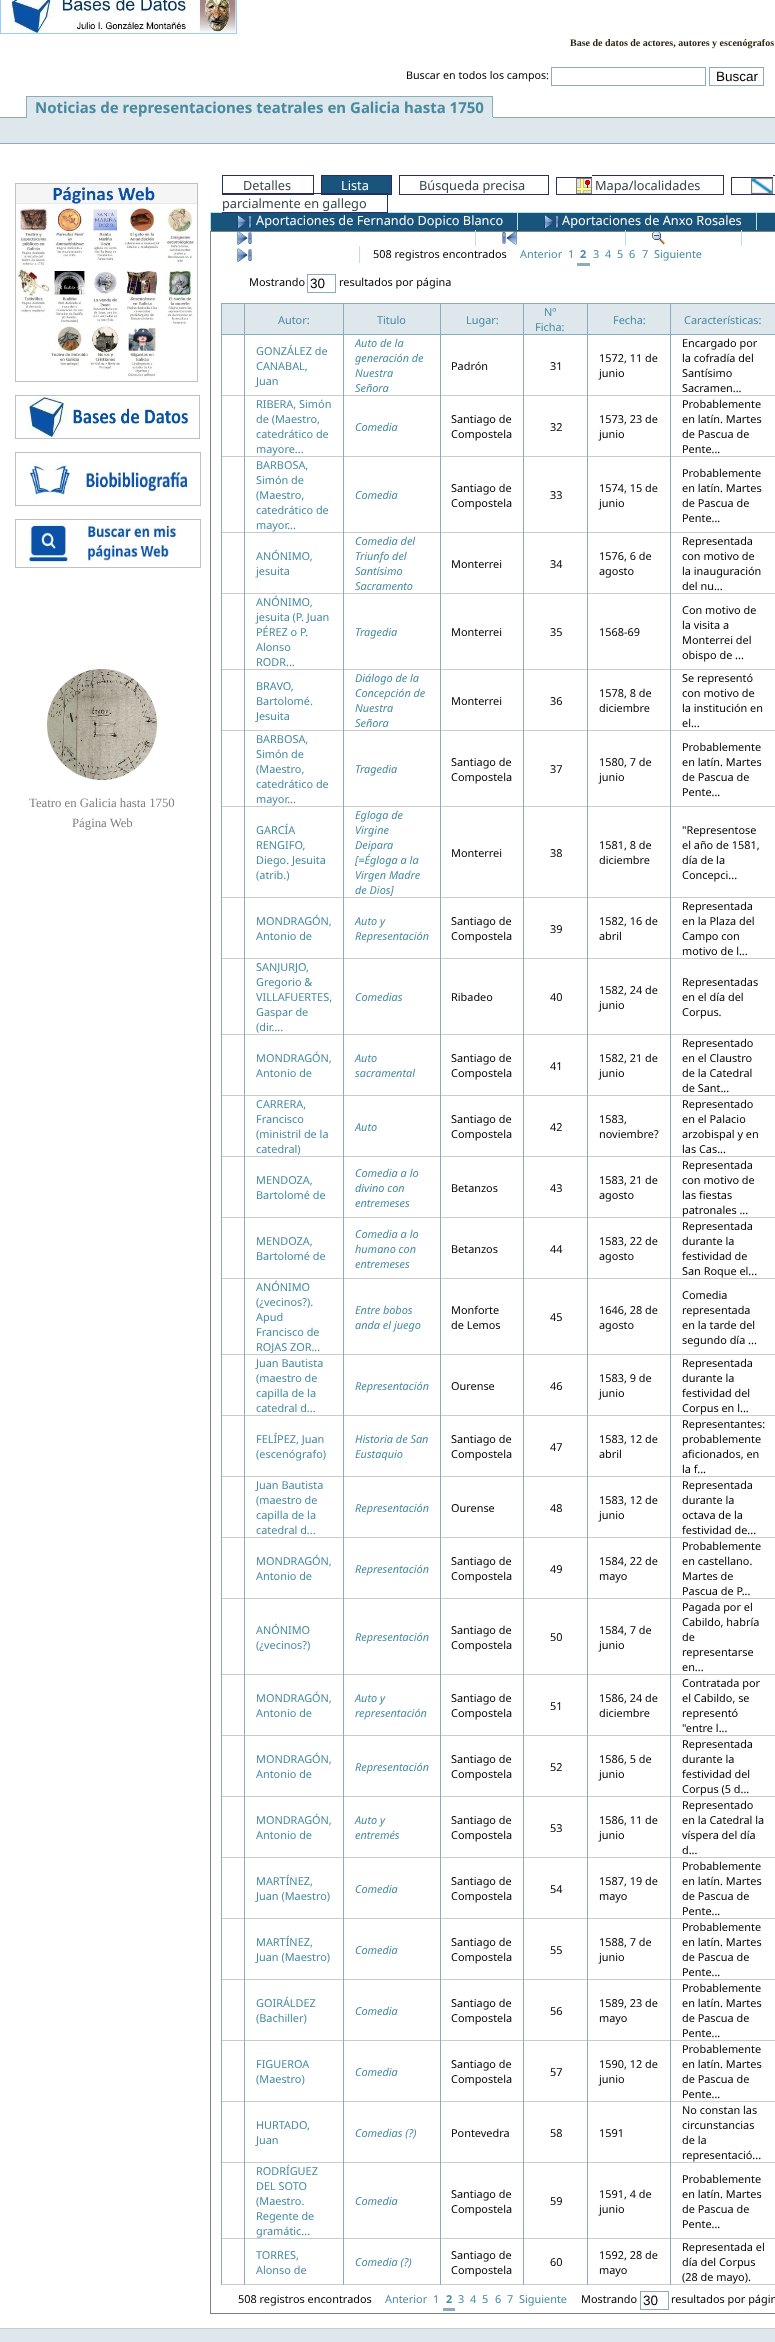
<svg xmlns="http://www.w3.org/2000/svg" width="775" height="2342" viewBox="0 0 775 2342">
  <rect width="100%" height="100%" fill="rgb(255,255,255)"/>
  <rect x="0.5" y="-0.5" width="236" height="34" fill="none" stroke="rgb(153,204,255)"/>
  <image x="10" y="0" width="226" height="33" href="pic1.png"/>
  <text x="570" y="46" font-family="Liberation Serif" font-size="10" font-weight="bold" fill="rgb(43,31,11)">Base de datos de actores, autores y escenógrafos</text>
  <text x="406" y="79" font-family="Noto Sans" font-size="10.7" fill="rgb(0,0,0)">Buscar en todos los campos:</text>
  <rect x="551.5" y="67.5" width="154" height="18" fill="none" stroke="rgb(140,172,187)"/>
  <rect x="709.5" y="67.5" width="54" height="18" fill="none" stroke="rgb(140,172,187)"/>
  <text x="716" y="81" font-family="Liberation Sans" font-size="13.5" fill="rgb(0,0,0)">Buscar</text>
  <rect x="27" y="97" width="465" height="20" fill="rgb(222,231,236)"/>
  <text x="35" y="113" font-family="Noto Sans" font-size="15" font-weight="bold" fill="rgb(71,139,161)">Noticias de representaciones teatrales en Galicia hasta 1750</text>
  <rect x="26" y="96" width="467" height="1" fill="rgb(140,172,187)"/>
  <rect x="0" y="117" width="775" height="1" fill="rgb(140,172,187)"/>
  <rect x="492" y="96" width="1" height="22" fill="rgb(140,172,187)"/>
  <rect x="26" y="117" width="467" height="1" fill="rgb(222,231,236)"/>
  <rect x="26" y="96" width="1" height="22" fill="rgb(140,172,187)"/>
  <rect x="0" y="118" width="775" height="25" fill="rgb(222,231,236)"/>
  <rect x="0" y="143" width="775" height="1" fill="rgb(140,172,187)"/>
  <rect x="15.5" y="183.5" width="182" height="198" fill="none" stroke="rgb(192,192,192)"/>
  <image x="16" y="184" width="181" height="193" href="pic2.png"/>
  <rect x="15.5" y="395.5" width="184" height="43" fill="none" stroke="rgb(192,192,192)"/>
  <image x="28" y="397" width="162" height="40" href="pic3.png"/>
  <rect x="15.5" y="452.5" width="185" height="53" fill="none" stroke="rgb(192,192,192)"/>
  <image x="29" y="462" width="160" height="37" href="pic4.png"/>
  <rect x="15.5" y="519.5" width="185" height="48" fill="none" stroke="rgb(192,192,192)"/>
  <image x="28" y="520" width="150" height="46" href="pic5.png"/>
  <image x="47" y="669" width="110" height="111" href="pic6.png"/>
  <g font-family="Liberation Serif" font-size="12.75" fill="rgb(128,128,128)">
    <text x="29" y="807">Teatro en Galicia hasta 1750</text>
    <text x="72" y="827">Página Web</text>
  </g>
  <rect x="210" y="212" width="565" height="1" fill="rgb(182,229,225)"/>
  <text x="243" y="190" font-family="Noto Sans" font-size="12.75" fill="rgb(56,70,71)">Detalles</text>
  <rect x="222" y="175" width="92" height="1" fill="rgb(42,44,100)"/>
  <rect x="222" y="194" width="69" height="1" fill="rgb(42,44,100)"/>
  <rect x="222" y="175" width="1" height="20" fill="rgb(42,44,100)"/>
  <rect x="313" y="175" width="1" height="20" fill="rgb(42,44,100)"/>
  <rect x="291" y="194" width="23" height="1" fill="rgb(42,44,100)"/>
  <rect x="322" y="176" width="47" height="17" fill="rgb(25,84,124)"/>
  <text x="341" y="190" font-family="Noto Sans" font-size="12.75" fill="rgb(255,255,255)">Lista</text>
  <rect x="321" y="175" width="71" height="1" fill="rgb(42,44,100)"/>
  <rect x="321" y="194" width="48" height="1" fill="rgb(21,48,105)"/>
  <rect x="321" y="175" width="1" height="20" fill="rgb(42,44,100)"/>
  <rect x="369" y="176" width="22" height="18" fill="rgb(25,84,124)"/>
  <rect x="391" y="175" width="1" height="20" fill="rgb(42,44,100)"/>
  <rect x="369" y="194" width="23" height="1" fill="rgb(21,48,105)"/>
  <text x="419" y="190" font-family="Noto Sans" font-size="12.75" fill="rgb(56,70,71)">Búsqueda precisa</text>
  <rect x="399" y="175" width="150" height="1" fill="rgb(42,44,100)"/>
  <rect x="399" y="194" width="127" height="1" fill="rgb(42,44,100)"/>
  <rect x="399" y="175" width="1" height="20" fill="rgb(42,44,100)"/>
  <rect x="548" y="175" width="1" height="20" fill="rgb(42,44,100)"/>
  <rect x="526" y="194" width="23" height="1" fill="rgb(42,44,100)"/>
  <image x="576" y="178" width="16" height="16" href="pic7.png"/>
  <text x="595" y="190" font-family="Noto Sans" font-size="12.75" fill="rgb(56,70,71)">Mapa/localidades</text>
  <rect x="556" y="177" width="36" height="1" fill="rgb(42,44,100)"/>
  <rect x="556" y="194" width="145" height="1" fill="rgb(42,44,100)"/>
  <rect x="556" y="177" width="1" height="18" fill="rgb(42,44,100)"/>
  <rect x="592" y="175" width="132" height="1" fill="rgb(42,44,100)"/>
  <rect x="723" y="175" width="1" height="20" fill="rgb(42,44,100)"/>
  <rect x="701" y="194" width="23" height="1" fill="rgb(42,44,100)"/>
  <image x="751" y="178" width="22" height="16" href="pic8.png"/>
  <text x="222" y="208" font-family="Noto Sans" font-size="12.75" fill="rgb(56,70,71)">parcialmente en gallego</text>
  <rect x="731" y="177" width="42" height="1" fill="rgb(42,44,100)"/>
  <rect x="731" y="194" width="44" height="1" fill="rgb(42,44,100)"/>
  <rect x="731" y="177" width="1" height="18" fill="rgb(42,44,100)"/>
  <rect x="773" y="175" width="2" height="1" fill="rgb(42,44,100)"/>
  <rect x="222" y="193" width="166" height="1" fill="rgb(42,44,100)"/>
  <rect x="387" y="193" width="1" height="20" fill="rgb(42,44,100)"/>
  <rect x="222" y="212" width="166" height="1" fill="rgb(42,44,100)"/>
  <rect x="211" y="213" width="564" height="18" fill="rgb(25,84,124)"/>
  <rect x="210" y="213" width="1" height="18" fill="rgb(182,229,225)"/>
  <rect x="517" y="213" width="1" height="17" fill="rgb(182,229,225)"/>
  <image x="237" y="215" width="15" height="14" href="pic9.png"/>
  <text x="256" y="225" font-family="Noto Sans" font-size="12.75" fill="rgb(255,255,255)">Aportaciones de Fernando Dopico Blanco</text>
  <rect x="756" y="213" width="1" height="17" fill="rgb(182,229,225)"/>
  <image x="544" y="215" width="15" height="14" href="pic9.png"/>
  <text x="562" y="225" font-family="Noto Sans" font-size="12.75" fill="rgb(255,255,255)">Aportaciones de Anxo Rosales</text>
  <rect x="210.5" y="231.5" width="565" height="2082" fill="none" stroke="rgb(128,128,128)"/>
  <rect x="475" y="230" width="1" height="16" fill="rgb(182,229,225)"/>
  <image x="237" y="231" width="15" height="14" href="pic10.png"/>
  <rect x="625" y="230" width="1" height="16" fill="rgb(182,229,225)"/>
  <image x="502" y="231" width="15" height="14" href="pic11.png"/>
  <rect x="741" y="230" width="1" height="16" fill="rgb(182,229,225)"/>
  <image x="652" y="232" width="13" height="13" href="pic12.png"/>
  <rect x="359" y="246" width="1" height="17" fill="rgb(182,229,225)"/>
  <image x="237" y="248" width="15" height="14" href="pic13.png"/>
  <text x="373" y="258" font-family="Noto Sans" font-size="10.9" fill="rgb(0,0,0)">508 registros encontrados</text>
  <g font-family="Noto Sans" font-size="10.9" fill="rgb(71,139,161)">
    <text x="520" y="258">Anterior</text>
    <text x="568" y="258">1</text>
  </g>
  <text x="580" y="258" font-family="Noto Sans" font-size="10.9" font-weight="bold" fill="rgb(71,139,161)">2</text>
  <rect x="577" y="263" width="13" height="3" fill="rgb(140,172,187)"/>
  <g font-family="Noto Sans" font-size="10.9" fill="rgb(71,139,161)">
    <text x="593" y="258">3</text>
    <text x="605" y="258">4</text>
    <text x="617" y="258">5</text>
    <text x="629" y="258">6</text>
    <text x="642" y="258">7</text>
    <text x="654" y="258">Siguiente</text>
  </g>
  <text x="249" y="286" font-family="Noto Sans" font-size="10.9" fill="rgb(0,0,0)">Mostrando</text>
  <rect x="307.5" y="274.5" width="28" height="18" fill="none" stroke="rgb(140,172,187)"/>
  <text x="310" y="288" font-family="Liberation Sans" font-size="13.5" fill="rgb(0,0,0)">30</text>
  <text x="339" y="286" font-family="Noto Sans" font-size="10.9" fill="rgb(0,0,0)">resultados por página</text>
  <rect x="221" y="303" width="1" height="31" fill="rgb(140,172,187)"/>
  <rect x="222" y="304" width="22" height="30" fill="rgb(222,231,236)"/>
  <rect x="221" y="303" width="554" height="1" fill="rgb(140,172,187)"/>
  <rect x="221" y="2284" width="554" height="1" fill="rgb(204,204,204)"/>
  <rect x="221" y="2238" width="1" height="47" fill="rgb(140,172,187)"/>
  <rect x="221" y="2238" width="554" height="1" fill="rgb(204,204,204)"/>
  <rect x="221" y="2162" width="1" height="77" fill="rgb(140,172,187)"/>
  <rect x="221" y="2162" width="554" height="1" fill="rgb(204,204,204)"/>
  <rect x="221" y="2101" width="1" height="62" fill="rgb(140,172,187)"/>
  <rect x="221" y="2101" width="554" height="1" fill="rgb(204,204,204)"/>
  <rect x="221" y="2040" width="1" height="62" fill="rgb(140,172,187)"/>
  <rect x="221" y="2040" width="554" height="1" fill="rgb(204,204,204)"/>
  <rect x="221" y="1979" width="1" height="62" fill="rgb(140,172,187)"/>
  <rect x="221" y="1979" width="554" height="1" fill="rgb(204,204,204)"/>
  <rect x="221" y="1918" width="1" height="62" fill="rgb(140,172,187)"/>
  <rect x="221" y="1918" width="554" height="1" fill="rgb(204,204,204)"/>
  <rect x="221" y="1857" width="1" height="62" fill="rgb(140,172,187)"/>
  <rect x="221" y="1857" width="554" height="1" fill="rgb(204,204,204)"/>
  <rect x="221" y="1796" width="1" height="62" fill="rgb(140,172,187)"/>
  <rect x="221" y="1796" width="554" height="1" fill="rgb(204,204,204)"/>
  <rect x="221" y="1735" width="1" height="62" fill="rgb(140,172,187)"/>
  <rect x="221" y="1735" width="554" height="1" fill="rgb(204,204,204)"/>
  <rect x="221" y="1674" width="1" height="62" fill="rgb(140,172,187)"/>
  <rect x="221" y="1674" width="554" height="1" fill="rgb(204,204,204)"/>
  <rect x="221" y="1598" width="1" height="77" fill="rgb(140,172,187)"/>
  <rect x="221" y="1598" width="554" height="1" fill="rgb(204,204,204)"/>
  <rect x="221" y="1537" width="1" height="62" fill="rgb(140,172,187)"/>
  <rect x="221" y="1537" width="554" height="1" fill="rgb(204,204,204)"/>
  <rect x="221" y="1476" width="1" height="62" fill="rgb(140,172,187)"/>
  <rect x="221" y="1476" width="554" height="1" fill="rgb(204,204,204)"/>
  <rect x="221" y="1415" width="1" height="62" fill="rgb(140,172,187)"/>
  <rect x="221" y="1415" width="554" height="1" fill="rgb(204,204,204)"/>
  <rect x="221" y="1354" width="1" height="62" fill="rgb(140,172,187)"/>
  <rect x="221" y="1354" width="554" height="1" fill="rgb(204,204,204)"/>
  <rect x="221" y="1278" width="1" height="77" fill="rgb(140,172,187)"/>
  <rect x="221" y="1278" width="554" height="1" fill="rgb(204,204,204)"/>
  <rect x="221" y="1217" width="1" height="62" fill="rgb(140,172,187)"/>
  <rect x="221" y="1217" width="554" height="1" fill="rgb(204,204,204)"/>
  <rect x="221" y="1156" width="1" height="62" fill="rgb(140,172,187)"/>
  <rect x="221" y="1156" width="554" height="1" fill="rgb(204,204,204)"/>
  <rect x="221" y="1095" width="1" height="62" fill="rgb(140,172,187)"/>
  <rect x="221" y="1095" width="554" height="1" fill="rgb(204,204,204)"/>
  <rect x="221" y="1034" width="1" height="62" fill="rgb(140,172,187)"/>
  <rect x="221" y="1034" width="554" height="1" fill="rgb(204,204,204)"/>
  <rect x="221" y="958" width="1" height="77" fill="rgb(140,172,187)"/>
  <rect x="221" y="958" width="554" height="1" fill="rgb(204,204,204)"/>
  <rect x="221" y="897" width="1" height="62" fill="rgb(140,172,187)"/>
  <rect x="221" y="897" width="554" height="1" fill="rgb(204,204,204)"/>
  <rect x="221" y="806" width="1" height="92" fill="rgb(140,172,187)"/>
  <rect x="221" y="806" width="554" height="1" fill="rgb(204,204,204)"/>
  <rect x="221" y="730" width="1" height="77" fill="rgb(140,172,187)"/>
  <rect x="221" y="730" width="554" height="1" fill="rgb(204,204,204)"/>
  <rect x="221" y="669" width="1" height="62" fill="rgb(140,172,187)"/>
  <rect x="221" y="669" width="554" height="1" fill="rgb(204,204,204)"/>
  <rect x="221" y="593" width="1" height="77" fill="rgb(140,172,187)"/>
  <rect x="221" y="593" width="554" height="1" fill="rgb(204,204,204)"/>
  <rect x="221" y="532" width="1" height="62" fill="rgb(140,172,187)"/>
  <rect x="221" y="532" width="554" height="1" fill="rgb(204,204,204)"/>
  <rect x="221" y="456" width="1" height="77" fill="rgb(140,172,187)"/>
  <rect x="221" y="456" width="554" height="1" fill="rgb(204,204,204)"/>
  <rect x="221" y="395" width="1" height="62" fill="rgb(140,172,187)"/>
  <rect x="221" y="395" width="554" height="1" fill="rgb(204,204,204)"/>
  <rect x="670" y="334" width="1" height="1951" fill="rgb(140,172,187)"/>
  <rect x="670" y="334" width="105" height="1" fill="rgb(140,172,187)"/>
  <rect x="670" y="303" width="1" height="32" fill="rgb(140,172,187)"/>
  <rect x="587" y="334" width="1" height="1951" fill="rgb(140,172,187)"/>
  <rect x="587" y="334" width="84" height="1" fill="rgb(140,172,187)"/>
  <rect x="587" y="303" width="1" height="32" fill="rgb(140,172,187)"/>
  <rect x="523" y="334" width="1" height="1951" fill="rgb(140,172,187)"/>
  <rect x="523" y="334" width="65" height="1" fill="rgb(140,172,187)"/>
  <rect x="523" y="303" width="1" height="32" fill="rgb(140,172,187)"/>
  <rect x="440" y="334" width="1" height="1951" fill="rgb(140,172,187)"/>
  <rect x="440" y="334" width="84" height="1" fill="rgb(140,172,187)"/>
  <rect x="440" y="303" width="1" height="32" fill="rgb(140,172,187)"/>
  <rect x="343" y="334" width="1" height="1951" fill="rgb(140,172,187)"/>
  <rect x="343" y="334" width="98" height="1" fill="rgb(140,172,187)"/>
  <rect x="343" y="303" width="1" height="32" fill="rgb(140,172,187)"/>
  <rect x="244" y="334" width="1" height="1951" fill="rgb(140,172,187)"/>
  <rect x="244" y="334" width="100" height="1" fill="rgb(140,172,187)"/>
  <rect x="244" y="303" width="1" height="32" fill="rgb(140,172,187)"/>
  <rect x="221" y="334" width="1" height="62" fill="rgb(140,172,187)"/>
  <rect x="221" y="334" width="24" height="1" fill="rgb(140,172,187)"/>
  <rect x="245" y="304" width="98" height="30" fill="rgb(222,231,236)"/>
  <text x="278" y="324" font-family="Noto Sans" font-size="10.9" fill="rgb(71,139,161)">Autor:</text>
  <rect x="344" y="304" width="96" height="30" fill="rgb(222,231,236)"/>
  <text x="377" y="324" font-family="Noto Sans" font-size="10.9" fill="rgb(71,139,161)">Titulo</text>
  <rect x="441" y="304" width="82" height="30" fill="rgb(222,231,236)"/>
  <text x="466" y="324" font-family="Noto Sans" font-size="10.9" fill="rgb(71,139,161)">Lugar:</text>
  <rect x="524" y="304" width="63" height="30" fill="rgb(222,231,236)"/>
  <g font-family="Noto Sans" font-size="10.9" fill="rgb(71,139,161)">
    <text x="544" y="316">Nº</text>
    <text x="535" y="331">Ficha:</text>
  </g>
  <rect x="588" y="304" width="82" height="30" fill="rgb(222,231,236)"/>
  <text x="613" y="324" font-family="Noto Sans" font-size="10.9" fill="rgb(71,139,161)">Fecha:</text>
  <rect x="671" y="304" width="104" height="30" fill="rgb(222,231,236)"/>
  <g font-family="Noto Sans" font-size="10.9" fill="rgb(71,139,161)">
    <text x="684" y="324">Características:</text>
    <text>
      <tspan x="256" y="355">GONZÁLEZ de</tspan>
      <tspan x="256" y="370">CANABAL,</tspan>
      <tspan x="256" y="385">Juan</tspan>
    </text>
  </g>
  <g font-family="Noto Sans" font-size="10.9" font-style="italic" fill="rgb(71,139,161)">
    <text>
      <tspan x="355" y="347">Auto de la</tspan>
      <tspan x="355" y="362">generación de</tspan>
      <tspan x="355" y="377">Nuestra</tspan>
      <tspan x="355" y="392">Señora</tspan>
    </text>
  </g>
  <g font-family="Noto Sans" font-size="10.9" fill="rgb(0,0,0)">
    <text x="451" y="370">Padrón</text>
    <text x="550" y="370">31</text>
    <text>
      <tspan x="599" y="362">1572, 11 de</tspan>
      <tspan x="599" y="377">junio</tspan>
    </text>
    <text>
      <tspan x="682" y="347">Encargado por</tspan>
      <tspan x="682" y="362">la cofradía del</tspan>
      <tspan x="682" y="377">Santísimo</tspan>
      <tspan x="682" y="392">Sacramen...</tspan>
    </text>
  </g>
  <g font-family="Noto Sans" font-size="10.9" fill="rgb(71,139,161)">
    <text>
      <tspan x="256" y="408">RIBERA, Simón</tspan>
      <tspan x="256" y="423">de (Maestro,</tspan>
      <tspan x="256" y="438">catedrático de</tspan>
      <tspan x="256" y="453">mayore...</tspan>
    </text>
  </g>
  <text x="355" y="431" font-family="Noto Sans" font-size="10.9" font-style="italic" fill="rgb(71,139,161)">Comedia</text>
  <g font-family="Noto Sans" font-size="10.9" fill="rgb(0,0,0)">
    <text>
      <tspan x="451" y="423">Santiago de</tspan>
      <tspan x="451" y="438">Compostela</tspan>
    </text>
    <text x="550" y="431">32</text>
    <text>
      <tspan x="599" y="423">1573, 23 de</tspan>
      <tspan x="599" y="438">junio</tspan>
    </text>
    <text>
      <tspan x="682" y="408">Probablemente</tspan>
      <tspan x="682" y="423">en latín. Martes</tspan>
      <tspan x="682" y="438">de Pascua de</tspan>
      <tspan x="682" y="453">Pente...</tspan>
    </text>
  </g>
  <g font-family="Noto Sans" font-size="10.9" fill="rgb(71,139,161)">
    <text>
      <tspan x="256" y="469">BARBOSA,</tspan>
      <tspan x="256" y="484">Simón de</tspan>
      <tspan x="256" y="499">(Maestro,</tspan>
      <tspan x="256" y="514">catedrático de</tspan>
      <tspan x="256" y="529">mayor...</tspan>
    </text>
  </g>
  <text x="355" y="499" font-family="Noto Sans" font-size="10.9" font-style="italic" fill="rgb(71,139,161)">Comedia</text>
  <g font-family="Noto Sans" font-size="10.9" fill="rgb(0,0,0)">
    <text>
      <tspan x="451" y="492">Santiago de</tspan>
      <tspan x="451" y="507">Compostela</tspan>
    </text>
    <text x="550" y="499">33</text>
    <text>
      <tspan x="599" y="492">1574, 15 de</tspan>
      <tspan x="599" y="507">junio</tspan>
    </text>
    <text>
      <tspan x="682" y="477">Probablemente</tspan>
      <tspan x="682" y="492">en latín. Martes</tspan>
      <tspan x="682" y="507">de Pascua de</tspan>
      <tspan x="682" y="522">Pente...</tspan>
    </text>
  </g>
  <g font-family="Noto Sans" font-size="10.9" fill="rgb(71,139,161)">
    <text>
      <tspan x="256" y="560">ANÓNIMO,</tspan>
      <tspan x="256" y="575">jesuita</tspan>
    </text>
  </g>
  <g font-family="Noto Sans" font-size="10.9" font-style="italic" fill="rgb(71,139,161)">
    <text>
      <tspan x="355" y="545">Comedia del</tspan>
      <tspan x="355" y="560">Triunfo del</tspan>
      <tspan x="355" y="575">Santísimo</tspan>
      <tspan x="355" y="590">Sacramento</tspan>
    </text>
  </g>
  <g font-family="Noto Sans" font-size="10.9" fill="rgb(0,0,0)">
    <text x="451" y="568">Monterrei</text>
    <text x="550" y="568">34</text>
    <text>
      <tspan x="599" y="560">1576, 6 de</tspan>
      <tspan x="599" y="575">agosto</tspan>
    </text>
    <text>
      <tspan x="682" y="545">Representada</tspan>
      <tspan x="682" y="560">con motivo de</tspan>
      <tspan x="682" y="575">la inauguración</tspan>
      <tspan x="682" y="590">del nu...</tspan>
    </text>
  </g>
  <g font-family="Noto Sans" font-size="10.9" fill="rgb(71,139,161)">
    <text>
      <tspan x="256" y="606">ANÓNIMO,</tspan>
      <tspan x="256" y="621">jesuita (P. Juan</tspan>
      <tspan x="256" y="636">PÉREZ o P.</tspan>
      <tspan x="256" y="651">Alonso</tspan>
      <tspan x="256" y="666">RODR...</tspan>
    </text>
  </g>
  <text x="355" y="636" font-family="Noto Sans" font-size="10.9" font-style="italic" fill="rgb(71,139,161)">Tragedia</text>
  <g font-family="Noto Sans" font-size="10.9" fill="rgb(0,0,0)">
    <text x="451" y="636">Monterrei</text>
    <text x="550" y="636">35</text>
    <text x="599" y="636">1568-69</text>
    <text>
      <tspan x="682" y="614">Con motivo de</tspan>
      <tspan x="682" y="629">la visita a</tspan>
      <tspan x="682" y="644">Monterrei del</tspan>
      <tspan x="682" y="659">obispo de ...</tspan>
    </text>
  </g>
  <g font-family="Noto Sans" font-size="10.9" fill="rgb(71,139,161)">
    <text>
      <tspan x="256" y="690">BRAVO,</tspan>
      <tspan x="256" y="705">Bartolomé.</tspan>
      <tspan x="256" y="720">Jesuita</tspan>
    </text>
  </g>
  <g font-family="Noto Sans" font-size="10.9" font-style="italic" fill="rgb(71,139,161)">
    <text>
      <tspan x="355" y="682">Diálogo de la</tspan>
      <tspan x="355" y="697">Concepción de</tspan>
      <tspan x="355" y="712">Nuestra</tspan>
      <tspan x="355" y="727">Señora</tspan>
    </text>
  </g>
  <g font-family="Noto Sans" font-size="10.9" fill="rgb(0,0,0)">
    <text x="451" y="705">Monterrei</text>
    <text x="550" y="705">36</text>
    <text>
      <tspan x="599" y="697">1578, 8 de</tspan>
      <tspan x="599" y="712">diciembre</tspan>
    </text>
    <text>
      <tspan x="682" y="682">Se representó</tspan>
      <tspan x="682" y="697">con motivo de</tspan>
      <tspan x="682" y="712">la institución en</tspan>
      <tspan x="682" y="727">el...</tspan>
    </text>
  </g>
  <g font-family="Noto Sans" font-size="10.9" fill="rgb(71,139,161)">
    <text>
      <tspan x="256" y="743">BARBOSA,</tspan>
      <tspan x="256" y="758">Simón de</tspan>
      <tspan x="256" y="773">(Maestro,</tspan>
      <tspan x="256" y="788">catedrático de</tspan>
      <tspan x="256" y="803">mayor...</tspan>
    </text>
  </g>
  <text x="355" y="773" font-family="Noto Sans" font-size="10.9" font-style="italic" fill="rgb(71,139,161)">Tragedia</text>
  <g font-family="Noto Sans" font-size="10.9" fill="rgb(0,0,0)">
    <text>
      <tspan x="451" y="766">Santiago de</tspan>
      <tspan x="451" y="781">Compostela</tspan>
    </text>
    <text x="550" y="773">37</text>
    <text>
      <tspan x="599" y="766">1580, 7 de</tspan>
      <tspan x="599" y="781">junio</tspan>
    </text>
    <text>
      <tspan x="682" y="751">Probablemente</tspan>
      <tspan x="682" y="766">en latín. Martes</tspan>
      <tspan x="682" y="781">de Pascua de</tspan>
      <tspan x="682" y="796">Pente...</tspan>
    </text>
  </g>
  <g font-family="Noto Sans" font-size="10.9" fill="rgb(71,139,161)">
    <text>
      <tspan x="256" y="834">GARCÍA</tspan>
      <tspan x="256" y="849">RENGIFO,</tspan>
      <tspan x="256" y="864">Diego. Jesuita</tspan>
      <tspan x="256" y="879">(atrib.)</tspan>
    </text>
  </g>
  <g font-family="Noto Sans" font-size="10.9" font-style="italic" fill="rgb(71,139,161)">
    <text>
      <tspan x="355" y="819">Egloga de</tspan>
      <tspan x="355" y="834">Virgine</tspan>
      <tspan x="355" y="849">Deipara</tspan>
      <tspan x="355" y="864">[=Égloga a la</tspan>
      <tspan x="355" y="879">Virgen Madre</tspan>
      <tspan x="355" y="894">de Dios]</tspan>
    </text>
  </g>
  <g font-family="Noto Sans" font-size="10.9" fill="rgb(0,0,0)">
    <text x="451" y="857">Monterrei</text>
    <text x="550" y="857">38</text>
    <text>
      <tspan x="599" y="849">1581, 8 de</tspan>
      <tspan x="599" y="864">diciembre</tspan>
    </text>
    <text>
      <tspan x="682" y="834">"Representose</tspan>
      <tspan x="682" y="849">el año de 1581,</tspan>
      <tspan x="682" y="864">día de la</tspan>
      <tspan x="682" y="879">Concepci...</tspan>
    </text>
  </g>
  <g font-family="Noto Sans" font-size="10.9" fill="rgb(71,139,161)">
    <text>
      <tspan x="256" y="925">MONDRAGÓN,</tspan>
      <tspan x="256" y="940">Antonio de</tspan>
    </text>
  </g>
  <g font-family="Noto Sans" font-size="10.9" font-style="italic" fill="rgb(71,139,161)">
    <text>
      <tspan x="355" y="925">Auto y</tspan>
      <tspan x="355" y="940">Representación</tspan>
    </text>
  </g>
  <g font-family="Noto Sans" font-size="10.9" fill="rgb(0,0,0)">
    <text>
      <tspan x="451" y="925">Santiago de</tspan>
      <tspan x="451" y="940">Compostela</tspan>
    </text>
    <text x="550" y="933">39</text>
    <text>
      <tspan x="599" y="925">1582, 16 de</tspan>
      <tspan x="599" y="940">abril</tspan>
    </text>
    <text>
      <tspan x="682" y="910">Representada</tspan>
      <tspan x="682" y="925">en la Plaza del</tspan>
      <tspan x="682" y="940">Campo con</tspan>
      <tspan x="682" y="955">motivo de l...</tspan>
    </text>
  </g>
  <g font-family="Noto Sans" font-size="10.9" fill="rgb(71,139,161)">
    <text>
      <tspan x="256" y="971">SANJURJO,</tspan>
      <tspan x="256" y="986">Gregorio &amp;</tspan>
      <tspan x="256" y="1001">VILLAFUERTES,</tspan>
      <tspan x="256" y="1016">Gaspar de</tspan>
      <tspan x="256" y="1031">(dir....</tspan>
    </text>
  </g>
  <text x="355" y="1001" font-family="Noto Sans" font-size="10.9" font-style="italic" fill="rgb(71,139,161)">Comedias</text>
  <g font-family="Noto Sans" font-size="10.9" fill="rgb(0,0,0)">
    <text x="451" y="1001">Ribadeo</text>
    <text x="550" y="1001">40</text>
    <text>
      <tspan x="599" y="994">1582, 24 de</tspan>
      <tspan x="599" y="1009">junio</tspan>
    </text>
    <text>
      <tspan x="682" y="986">Representadas</tspan>
      <tspan x="682" y="1001">en el día del</tspan>
      <tspan x="682" y="1016">Corpus.</tspan>
    </text>
  </g>
  <g font-family="Noto Sans" font-size="10.9" fill="rgb(71,139,161)">
    <text>
      <tspan x="256" y="1062">MONDRAGÓN,</tspan>
      <tspan x="256" y="1077">Antonio de</tspan>
    </text>
  </g>
  <g font-family="Noto Sans" font-size="10.9" font-style="italic" fill="rgb(71,139,161)">
    <text>
      <tspan x="355" y="1062">Auto</tspan>
      <tspan x="355" y="1077">sacramental</tspan>
    </text>
  </g>
  <g font-family="Noto Sans" font-size="10.9" fill="rgb(0,0,0)">
    <text>
      <tspan x="451" y="1062">Santiago de</tspan>
      <tspan x="451" y="1077">Compostela</tspan>
    </text>
    <text x="550" y="1070">41</text>
    <text>
      <tspan x="599" y="1062">1582, 21 de</tspan>
      <tspan x="599" y="1077">junio</tspan>
    </text>
    <text>
      <tspan x="682" y="1047">Representado</tspan>
      <tspan x="682" y="1062">en el Claustro</tspan>
      <tspan x="682" y="1077">de la Catedral</tspan>
      <tspan x="682" y="1092">de Sant...</tspan>
    </text>
  </g>
  <g font-family="Noto Sans" font-size="10.9" fill="rgb(71,139,161)">
    <text>
      <tspan x="256" y="1108">CARRERA,</tspan>
      <tspan x="256" y="1123">Francisco</tspan>
      <tspan x="256" y="1138">(ministril de la</tspan>
      <tspan x="256" y="1153">catedral)</tspan>
    </text>
  </g>
  <text x="355" y="1131" font-family="Noto Sans" font-size="10.9" font-style="italic" fill="rgb(71,139,161)">Auto</text>
  <g font-family="Noto Sans" font-size="10.9" fill="rgb(0,0,0)">
    <text>
      <tspan x="451" y="1123">Santiago de</tspan>
      <tspan x="451" y="1138">Compostela</tspan>
    </text>
    <text x="550" y="1131">42</text>
    <text>
      <tspan x="599" y="1123">1583,</tspan>
      <tspan x="599" y="1138">noviembre?</tspan>
    </text>
    <text>
      <tspan x="682" y="1108">Representado</tspan>
      <tspan x="682" y="1123">en el Palacio</tspan>
      <tspan x="682" y="1138">arzobispal y en</tspan>
      <tspan x="682" y="1153">las Cas...</tspan>
    </text>
  </g>
  <g font-family="Noto Sans" font-size="10.9" fill="rgb(71,139,161)">
    <text>
      <tspan x="256" y="1184">MENDOZA,</tspan>
      <tspan x="256" y="1199">Bartolomé de</tspan>
    </text>
  </g>
  <g font-family="Noto Sans" font-size="10.9" font-style="italic" fill="rgb(71,139,161)">
    <text>
      <tspan x="355" y="1177">Comedia a lo</tspan>
      <tspan x="355" y="1192">divino con</tspan>
      <tspan x="355" y="1207">entremeses</tspan>
    </text>
  </g>
  <g font-family="Noto Sans" font-size="10.9" fill="rgb(0,0,0)">
    <text x="451" y="1192">Betanzos</text>
    <text x="550" y="1192">43</text>
    <text>
      <tspan x="599" y="1184">1583, 21 de</tspan>
      <tspan x="599" y="1199">agosto</tspan>
    </text>
    <text>
      <tspan x="682" y="1169">Representada</tspan>
      <tspan x="682" y="1184">con motivo de</tspan>
      <tspan x="682" y="1199">las fiestas</tspan>
      <tspan x="682" y="1214">patronales ...</tspan>
    </text>
  </g>
  <g font-family="Noto Sans" font-size="10.9" fill="rgb(71,139,161)">
    <text>
      <tspan x="256" y="1245">MENDOZA,</tspan>
      <tspan x="256" y="1260">Bartolomé de</tspan>
    </text>
  </g>
  <g font-family="Noto Sans" font-size="10.9" font-style="italic" fill="rgb(71,139,161)">
    <text>
      <tspan x="355" y="1238">Comedia a lo</tspan>
      <tspan x="355" y="1253">humano con</tspan>
      <tspan x="355" y="1268">entremeses</tspan>
    </text>
  </g>
  <g font-family="Noto Sans" font-size="10.9" fill="rgb(0,0,0)">
    <text x="451" y="1253">Betanzos</text>
    <text x="550" y="1253">44</text>
    <text>
      <tspan x="599" y="1245">1583, 22 de</tspan>
      <tspan x="599" y="1260">agosto</tspan>
    </text>
    <text>
      <tspan x="682" y="1230">Representada</tspan>
      <tspan x="682" y="1245">durante la</tspan>
      <tspan x="682" y="1260">festividad de</tspan>
      <tspan x="682" y="1275">San Roque el...</tspan>
    </text>
  </g>
  <g font-family="Noto Sans" font-size="10.9" fill="rgb(71,139,161)">
    <text>
      <tspan x="256" y="1291">ANÓNIMO</tspan>
      <tspan x="256" y="1306">(¿vecinos?).</tspan>
      <tspan x="256" y="1321">Apud</tspan>
      <tspan x="256" y="1336">Francisco de</tspan>
      <tspan x="256" y="1351">ROJAS ZOR...</tspan>
    </text>
  </g>
  <g font-family="Noto Sans" font-size="10.9" font-style="italic" fill="rgb(71,139,161)">
    <text>
      <tspan x="355" y="1314">Entre bobos</tspan>
      <tspan x="355" y="1329">anda el juego</tspan>
    </text>
  </g>
  <g font-family="Noto Sans" font-size="10.9" fill="rgb(0,0,0)">
    <text>
      <tspan x="451" y="1314">Monforte</tspan>
      <tspan x="451" y="1329">de Lemos</tspan>
    </text>
    <text x="550" y="1321">45</text>
    <text>
      <tspan x="599" y="1314">1646, 28 de</tspan>
      <tspan x="599" y="1329">agosto</tspan>
    </text>
    <text>
      <tspan x="682" y="1299">Comedia</tspan>
      <tspan x="682" y="1314">representada</tspan>
      <tspan x="682" y="1329">en la tarde del</tspan>
      <tspan x="682" y="1344">segundo día ...</tspan>
    </text>
  </g>
  <g font-family="Noto Sans" font-size="10.9" fill="rgb(71,139,161)">
    <text>
      <tspan x="256" y="1367">Juan Bautista</tspan>
      <tspan x="256" y="1382">(maestro de</tspan>
      <tspan x="256" y="1397">capilla de la</tspan>
      <tspan x="256" y="1412">catedral d...</tspan>
    </text>
  </g>
  <text x="355" y="1390" font-family="Noto Sans" font-size="10.9" font-style="italic" fill="rgb(71,139,161)">Representación</text>
  <g font-family="Noto Sans" font-size="10.9" fill="rgb(0,0,0)">
    <text x="451" y="1390">Ourense</text>
    <text x="550" y="1390">46</text>
    <text>
      <tspan x="599" y="1382">1583, 9 de</tspan>
      <tspan x="599" y="1397">junio</tspan>
    </text>
    <text>
      <tspan x="682" y="1367">Representada</tspan>
      <tspan x="682" y="1382">durante la</tspan>
      <tspan x="682" y="1397">festividad del</tspan>
      <tspan x="682" y="1412">Corpus en l...</tspan>
    </text>
  </g>
  <g font-family="Noto Sans" font-size="10.9" fill="rgb(71,139,161)">
    <text>
      <tspan x="256" y="1443">FELÍPEZ, Juan</tspan>
      <tspan x="256" y="1458">(escenógrafo)</tspan>
    </text>
  </g>
  <g font-family="Noto Sans" font-size="10.9" font-style="italic" fill="rgb(71,139,161)">
    <text>
      <tspan x="355" y="1443">Historia de San</tspan>
      <tspan x="355" y="1458">Eustaquio</tspan>
    </text>
  </g>
  <g font-family="Noto Sans" font-size="10.9" fill="rgb(0,0,0)">
    <text>
      <tspan x="451" y="1443">Santiago de</tspan>
      <tspan x="451" y="1458">Compostela</tspan>
    </text>
    <text x="550" y="1451">47</text>
    <text>
      <tspan x="599" y="1443">1583, 12 de</tspan>
      <tspan x="599" y="1458">abril</tspan>
    </text>
    <text>
      <tspan x="682" y="1428">Representantes:</tspan>
      <tspan x="682" y="1443">probablemente</tspan>
      <tspan x="682" y="1458">aficionados, en</tspan>
      <tspan x="682" y="1473">la f...</tspan>
    </text>
  </g>
  <g font-family="Noto Sans" font-size="10.9" fill="rgb(71,139,161)">
    <text>
      <tspan x="256" y="1489">Juan Bautista</tspan>
      <tspan x="256" y="1504">(maestro de</tspan>
      <tspan x="256" y="1519">capilla de la</tspan>
      <tspan x="256" y="1534">catedral d...</tspan>
    </text>
  </g>
  <text x="355" y="1512" font-family="Noto Sans" font-size="10.9" font-style="italic" fill="rgb(71,139,161)">Representación</text>
  <g font-family="Noto Sans" font-size="10.9" fill="rgb(0,0,0)">
    <text x="451" y="1512">Ourense</text>
    <text x="550" y="1512">48</text>
    <text>
      <tspan x="599" y="1504">1583, 12 de</tspan>
      <tspan x="599" y="1519">junio</tspan>
    </text>
    <text>
      <tspan x="682" y="1489">Representada</tspan>
      <tspan x="682" y="1504">durante la</tspan>
      <tspan x="682" y="1519">octava de la</tspan>
      <tspan x="682" y="1534">festividad de...</tspan>
    </text>
  </g>
  <g font-family="Noto Sans" font-size="10.9" fill="rgb(71,139,161)">
    <text>
      <tspan x="256" y="1565">MONDRAGÓN,</tspan>
      <tspan x="256" y="1580">Antonio de</tspan>
    </text>
  </g>
  <text x="355" y="1573" font-family="Noto Sans" font-size="10.9" font-style="italic" fill="rgb(71,139,161)">Representación</text>
  <g font-family="Noto Sans" font-size="10.9" fill="rgb(0,0,0)">
    <text>
      <tspan x="451" y="1565">Santiago de</tspan>
      <tspan x="451" y="1580">Compostela</tspan>
    </text>
    <text x="550" y="1573">49</text>
    <text>
      <tspan x="599" y="1565">1584, 22 de</tspan>
      <tspan x="599" y="1580">mayo</tspan>
    </text>
    <text>
      <tspan x="682" y="1550">Probablemente</tspan>
      <tspan x="682" y="1565">en castellano.</tspan>
      <tspan x="682" y="1580">Martes de</tspan>
      <tspan x="682" y="1595">Pascua de P...</tspan>
    </text>
  </g>
  <g font-family="Noto Sans" font-size="10.9" fill="rgb(71,139,161)">
    <text>
      <tspan x="256" y="1634">ANÓNIMO</tspan>
      <tspan x="256" y="1649">(¿vecinos?)</tspan>
    </text>
  </g>
  <text x="355" y="1641" font-family="Noto Sans" font-size="10.9" font-style="italic" fill="rgb(71,139,161)">Representación</text>
  <g font-family="Noto Sans" font-size="10.9" fill="rgb(0,0,0)">
    <text>
      <tspan x="451" y="1634">Santiago de</tspan>
      <tspan x="451" y="1649">Compostela</tspan>
    </text>
    <text x="550" y="1641">50</text>
    <text>
      <tspan x="599" y="1634">1584, 7 de</tspan>
      <tspan x="599" y="1649">junio</tspan>
    </text>
    <text>
      <tspan x="682" y="1611">Pagada por el</tspan>
      <tspan x="682" y="1626">Cabildo, habría</tspan>
      <tspan x="682" y="1641">de</tspan>
      <tspan x="682" y="1656">representarse</tspan>
      <tspan x="682" y="1671">en...</tspan>
    </text>
  </g>
  <g font-family="Noto Sans" font-size="10.9" fill="rgb(71,139,161)">
    <text>
      <tspan x="256" y="1702">MONDRAGÓN,</tspan>
      <tspan x="256" y="1717">Antonio de</tspan>
    </text>
  </g>
  <g font-family="Noto Sans" font-size="10.9" font-style="italic" fill="rgb(71,139,161)">
    <text>
      <tspan x="355" y="1702">Auto y</tspan>
      <tspan x="355" y="1717">representación</tspan>
    </text>
  </g>
  <g font-family="Noto Sans" font-size="10.9" fill="rgb(0,0,0)">
    <text>
      <tspan x="451" y="1702">Santiago de</tspan>
      <tspan x="451" y="1717">Compostela</tspan>
    </text>
    <text x="550" y="1710">51</text>
    <text>
      <tspan x="599" y="1702">1586, 24 de</tspan>
      <tspan x="599" y="1717">diciembre</tspan>
    </text>
    <text>
      <tspan x="682" y="1687">Contratada por</tspan>
      <tspan x="682" y="1702">el Cabildo, se</tspan>
      <tspan x="682" y="1717">representó</tspan>
      <tspan x="682" y="1732">"entre l...</tspan>
    </text>
  </g>
  <g font-family="Noto Sans" font-size="10.9" fill="rgb(71,139,161)">
    <text>
      <tspan x="256" y="1763">MONDRAGÓN,</tspan>
      <tspan x="256" y="1778">Antonio de</tspan>
    </text>
  </g>
  <text x="355" y="1771" font-family="Noto Sans" font-size="10.9" font-style="italic" fill="rgb(71,139,161)">Representación</text>
  <g font-family="Noto Sans" font-size="10.9" fill="rgb(0,0,0)">
    <text>
      <tspan x="451" y="1763">Santiago de</tspan>
      <tspan x="451" y="1778">Compostela</tspan>
    </text>
    <text x="550" y="1771">52</text>
    <text>
      <tspan x="599" y="1763">1586, 5 de</tspan>
      <tspan x="599" y="1778">junio</tspan>
    </text>
    <text>
      <tspan x="682" y="1748">Representada</tspan>
      <tspan x="682" y="1763">durante la</tspan>
      <tspan x="682" y="1778">festividad del</tspan>
      <tspan x="682" y="1793">Corpus (5 d...</tspan>
    </text>
  </g>
  <g font-family="Noto Sans" font-size="10.9" fill="rgb(71,139,161)">
    <text>
      <tspan x="256" y="1824">MONDRAGÓN,</tspan>
      <tspan x="256" y="1839">Antonio de</tspan>
    </text>
  </g>
  <g font-family="Noto Sans" font-size="10.9" font-style="italic" fill="rgb(71,139,161)">
    <text>
      <tspan x="355" y="1824">Auto y</tspan>
      <tspan x="355" y="1839">entremés</tspan>
    </text>
  </g>
  <g font-family="Noto Sans" font-size="10.9" fill="rgb(0,0,0)">
    <text>
      <tspan x="451" y="1824">Santiago de</tspan>
      <tspan x="451" y="1839">Compostela</tspan>
    </text>
    <text x="550" y="1832">53</text>
    <text>
      <tspan x="599" y="1824">1586, 11 de</tspan>
      <tspan x="599" y="1839">junio</tspan>
    </text>
    <text>
      <tspan x="682" y="1809">Representado</tspan>
      <tspan x="682" y="1824">en la Catedral la</tspan>
      <tspan x="682" y="1839">víspera del día</tspan>
      <tspan x="682" y="1854">d...</tspan>
    </text>
  </g>
  <g font-family="Noto Sans" font-size="10.9" fill="rgb(71,139,161)">
    <text>
      <tspan x="256" y="1885">MARTÍNEZ,</tspan>
      <tspan x="256" y="1900">Juan (Maestro)</tspan>
    </text>
  </g>
  <text x="355" y="1893" font-family="Noto Sans" font-size="10.9" font-style="italic" fill="rgb(71,139,161)">Comedia</text>
  <g font-family="Noto Sans" font-size="10.9" fill="rgb(0,0,0)">
    <text>
      <tspan x="451" y="1885">Santiago de</tspan>
      <tspan x="451" y="1900">Compostela</tspan>
    </text>
    <text x="550" y="1893">54</text>
    <text>
      <tspan x="599" y="1885">1587, 19 de</tspan>
      <tspan x="599" y="1900">mayo</tspan>
    </text>
    <text>
      <tspan x="682" y="1870">Probablemente</tspan>
      <tspan x="682" y="1885">en latín. Martes</tspan>
      <tspan x="682" y="1900">de Pascua de</tspan>
      <tspan x="682" y="1915">Pente...</tspan>
    </text>
  </g>
  <g font-family="Noto Sans" font-size="10.9" fill="rgb(71,139,161)">
    <text>
      <tspan x="256" y="1946">MARTÍNEZ,</tspan>
      <tspan x="256" y="1961">Juan (Maestro)</tspan>
    </text>
  </g>
  <text x="355" y="1954" font-family="Noto Sans" font-size="10.9" font-style="italic" fill="rgb(71,139,161)">Comedia</text>
  <g font-family="Noto Sans" font-size="10.9" fill="rgb(0,0,0)">
    <text>
      <tspan x="451" y="1946">Santiago de</tspan>
      <tspan x="451" y="1961">Compostela</tspan>
    </text>
    <text x="550" y="1954">55</text>
    <text>
      <tspan x="599" y="1946">1588, 7 de</tspan>
      <tspan x="599" y="1961">junio</tspan>
    </text>
    <text>
      <tspan x="682" y="1931">Probablemente</tspan>
      <tspan x="682" y="1946">en latín. Martes</tspan>
      <tspan x="682" y="1961">de Pascua de</tspan>
      <tspan x="682" y="1976">Pente...</tspan>
    </text>
  </g>
  <g font-family="Noto Sans" font-size="10.9" fill="rgb(71,139,161)">
    <text>
      <tspan x="256" y="2007">GOIRÁLDEZ</tspan>
      <tspan x="256" y="2022">(Bachiller)</tspan>
    </text>
  </g>
  <text x="355" y="2015" font-family="Noto Sans" font-size="10.9" font-style="italic" fill="rgb(71,139,161)">Comedia</text>
  <g font-family="Noto Sans" font-size="10.9" fill="rgb(0,0,0)">
    <text>
      <tspan x="451" y="2007">Santiago de</tspan>
      <tspan x="451" y="2022">Compostela</tspan>
    </text>
    <text x="550" y="2015">56</text>
    <text>
      <tspan x="599" y="2007">1589, 23 de</tspan>
      <tspan x="599" y="2022">mayo</tspan>
    </text>
    <text>
      <tspan x="682" y="1992">Probablemente</tspan>
      <tspan x="682" y="2007">en latín. Martes</tspan>
      <tspan x="682" y="2022">de Pascua de</tspan>
      <tspan x="682" y="2037">Pente...</tspan>
    </text>
  </g>
  <g font-family="Noto Sans" font-size="10.9" fill="rgb(71,139,161)">
    <text>
      <tspan x="256" y="2068">FIGUEROA</tspan>
      <tspan x="256" y="2083">(Maestro)</tspan>
    </text>
  </g>
  <text x="355" y="2076" font-family="Noto Sans" font-size="10.9" font-style="italic" fill="rgb(71,139,161)">Comedia</text>
  <g font-family="Noto Sans" font-size="10.9" fill="rgb(0,0,0)">
    <text>
      <tspan x="451" y="2068">Santiago de</tspan>
      <tspan x="451" y="2083">Compostela</tspan>
    </text>
    <text x="550" y="2076">57</text>
    <text>
      <tspan x="599" y="2068">1590, 12 de</tspan>
      <tspan x="599" y="2083">junio</tspan>
    </text>
    <text>
      <tspan x="682" y="2053">Probablemente</tspan>
      <tspan x="682" y="2068">en latín. Martes</tspan>
      <tspan x="682" y="2083">de Pascua de</tspan>
      <tspan x="682" y="2098">Pente...</tspan>
    </text>
  </g>
  <g font-family="Noto Sans" font-size="10.9" fill="rgb(71,139,161)">
    <text>
      <tspan x="256" y="2129">HURTADO,</tspan>
      <tspan x="256" y="2144">Juan</tspan>
    </text>
  </g>
  <text x="355" y="2137" font-family="Noto Sans" font-size="10.9" font-style="italic" fill="rgb(71,139,161)">Comedias (?)</text>
  <g font-family="Noto Sans" font-size="10.9" fill="rgb(0,0,0)">
    <text x="451" y="2137">Pontevedra</text>
    <text x="550" y="2137">58</text>
    <text x="599" y="2137">1591</text>
    <text>
      <tspan x="682" y="2114">No constan las</tspan>
      <tspan x="682" y="2129">circunstancias</tspan>
      <tspan x="682" y="2144">de la</tspan>
      <tspan x="682" y="2159">representació...</tspan>
    </text>
  </g>
  <g font-family="Noto Sans" font-size="10.9" fill="rgb(71,139,161)">
    <text>
      <tspan x="256" y="2175">RODRÍGUEZ</tspan>
      <tspan x="256" y="2190">DEL SOTO</tspan>
      <tspan x="256" y="2205">(Maestro.</tspan>
      <tspan x="256" y="2220">Regente de</tspan>
      <tspan x="256" y="2235">gramátic...</tspan>
    </text>
  </g>
  <text x="355" y="2205" font-family="Noto Sans" font-size="10.9" font-style="italic" fill="rgb(71,139,161)">Comedia</text>
  <g font-family="Noto Sans" font-size="10.9" fill="rgb(0,0,0)">
    <text>
      <tspan x="451" y="2198">Santiago de</tspan>
      <tspan x="451" y="2213">Compostela</tspan>
    </text>
    <text x="550" y="2205">59</text>
    <text>
      <tspan x="599" y="2198">1591, 4 de</tspan>
      <tspan x="599" y="2213">junio</tspan>
    </text>
    <text>
      <tspan x="682" y="2183">Probablemente</tspan>
      <tspan x="682" y="2198">en latín. Martes</tspan>
      <tspan x="682" y="2213">de Pascua de</tspan>
      <tspan x="682" y="2228">Pente...</tspan>
    </text>
  </g>
  <g font-family="Noto Sans" font-size="10.9" fill="rgb(71,139,161)">
    <text>
      <tspan x="256" y="2259">TORRES,</tspan>
      <tspan x="256" y="2274">Alonso de</tspan>
    </text>
  </g>
  <text x="355" y="2266" font-family="Noto Sans" font-size="10.9" font-style="italic" fill="rgb(71,139,161)">Comedia (?)</text>
  <g font-family="Noto Sans" font-size="10.9" fill="rgb(0,0,0)">
    <text>
      <tspan x="451" y="2259">Santiago de</tspan>
      <tspan x="451" y="2274">Compostela</tspan>
    </text>
    <text x="550" y="2266">60</text>
    <text>
      <tspan x="599" y="2259">1592, 28 de</tspan>
      <tspan x="599" y="2274">mayo</tspan>
    </text>
    <text>
      <tspan x="682" y="2251">Representada el</tspan>
      <tspan x="682" y="2266">día del Corpus</tspan>
      <tspan x="682" y="2281">(28 de mayo).</tspan>
    </text>
    <text x="238" y="2303">508 registros encontrados</text>
  </g>
  <g font-family="Noto Sans" font-size="10.9" fill="rgb(71,139,161)">
    <text x="385" y="2303">Anterior</text>
    <text x="433" y="2303">1</text>
  </g>
  <text x="446" y="2303" font-family="Noto Sans" font-size="10.9" font-weight="bold" fill="rgb(71,139,161)">2</text>
  <rect x="443" y="2308" width="12" height="3" fill="rgb(140,172,187)"/>
  <g font-family="Noto Sans" font-size="10.9" fill="rgb(71,139,161)">
    <text x="458" y="2303">3</text>
    <text x="470" y="2303">4</text>
    <text x="482" y="2303">5</text>
    <text x="495" y="2303">6</text>
    <text x="507" y="2303">7</text>
    <text x="519" y="2303">Siguiente</text>
  </g>
  <text x="581" y="2303" font-family="Noto Sans" font-size="10.9" fill="rgb(0,0,0)">Mostrando</text>
  <rect x="640.5" y="2291.5" width="28" height="18" fill="none" stroke="rgb(140,172,187)"/>
  <text x="643" y="2305" font-family="Liberation Sans" font-size="13.5" fill="rgb(0,0,0)">30</text>
  <text x="671" y="2303" font-family="Noto Sans" font-size="10.9" fill="rgb(0,0,0)">resultados por págin</text>
  <rect x="0" y="2329" width="775" height="13" fill="rgb(222,231,236)"/>
  <rect x="0" y="2328" width="775" height="1" fill="rgb(204,204,204)"/>
</svg>
